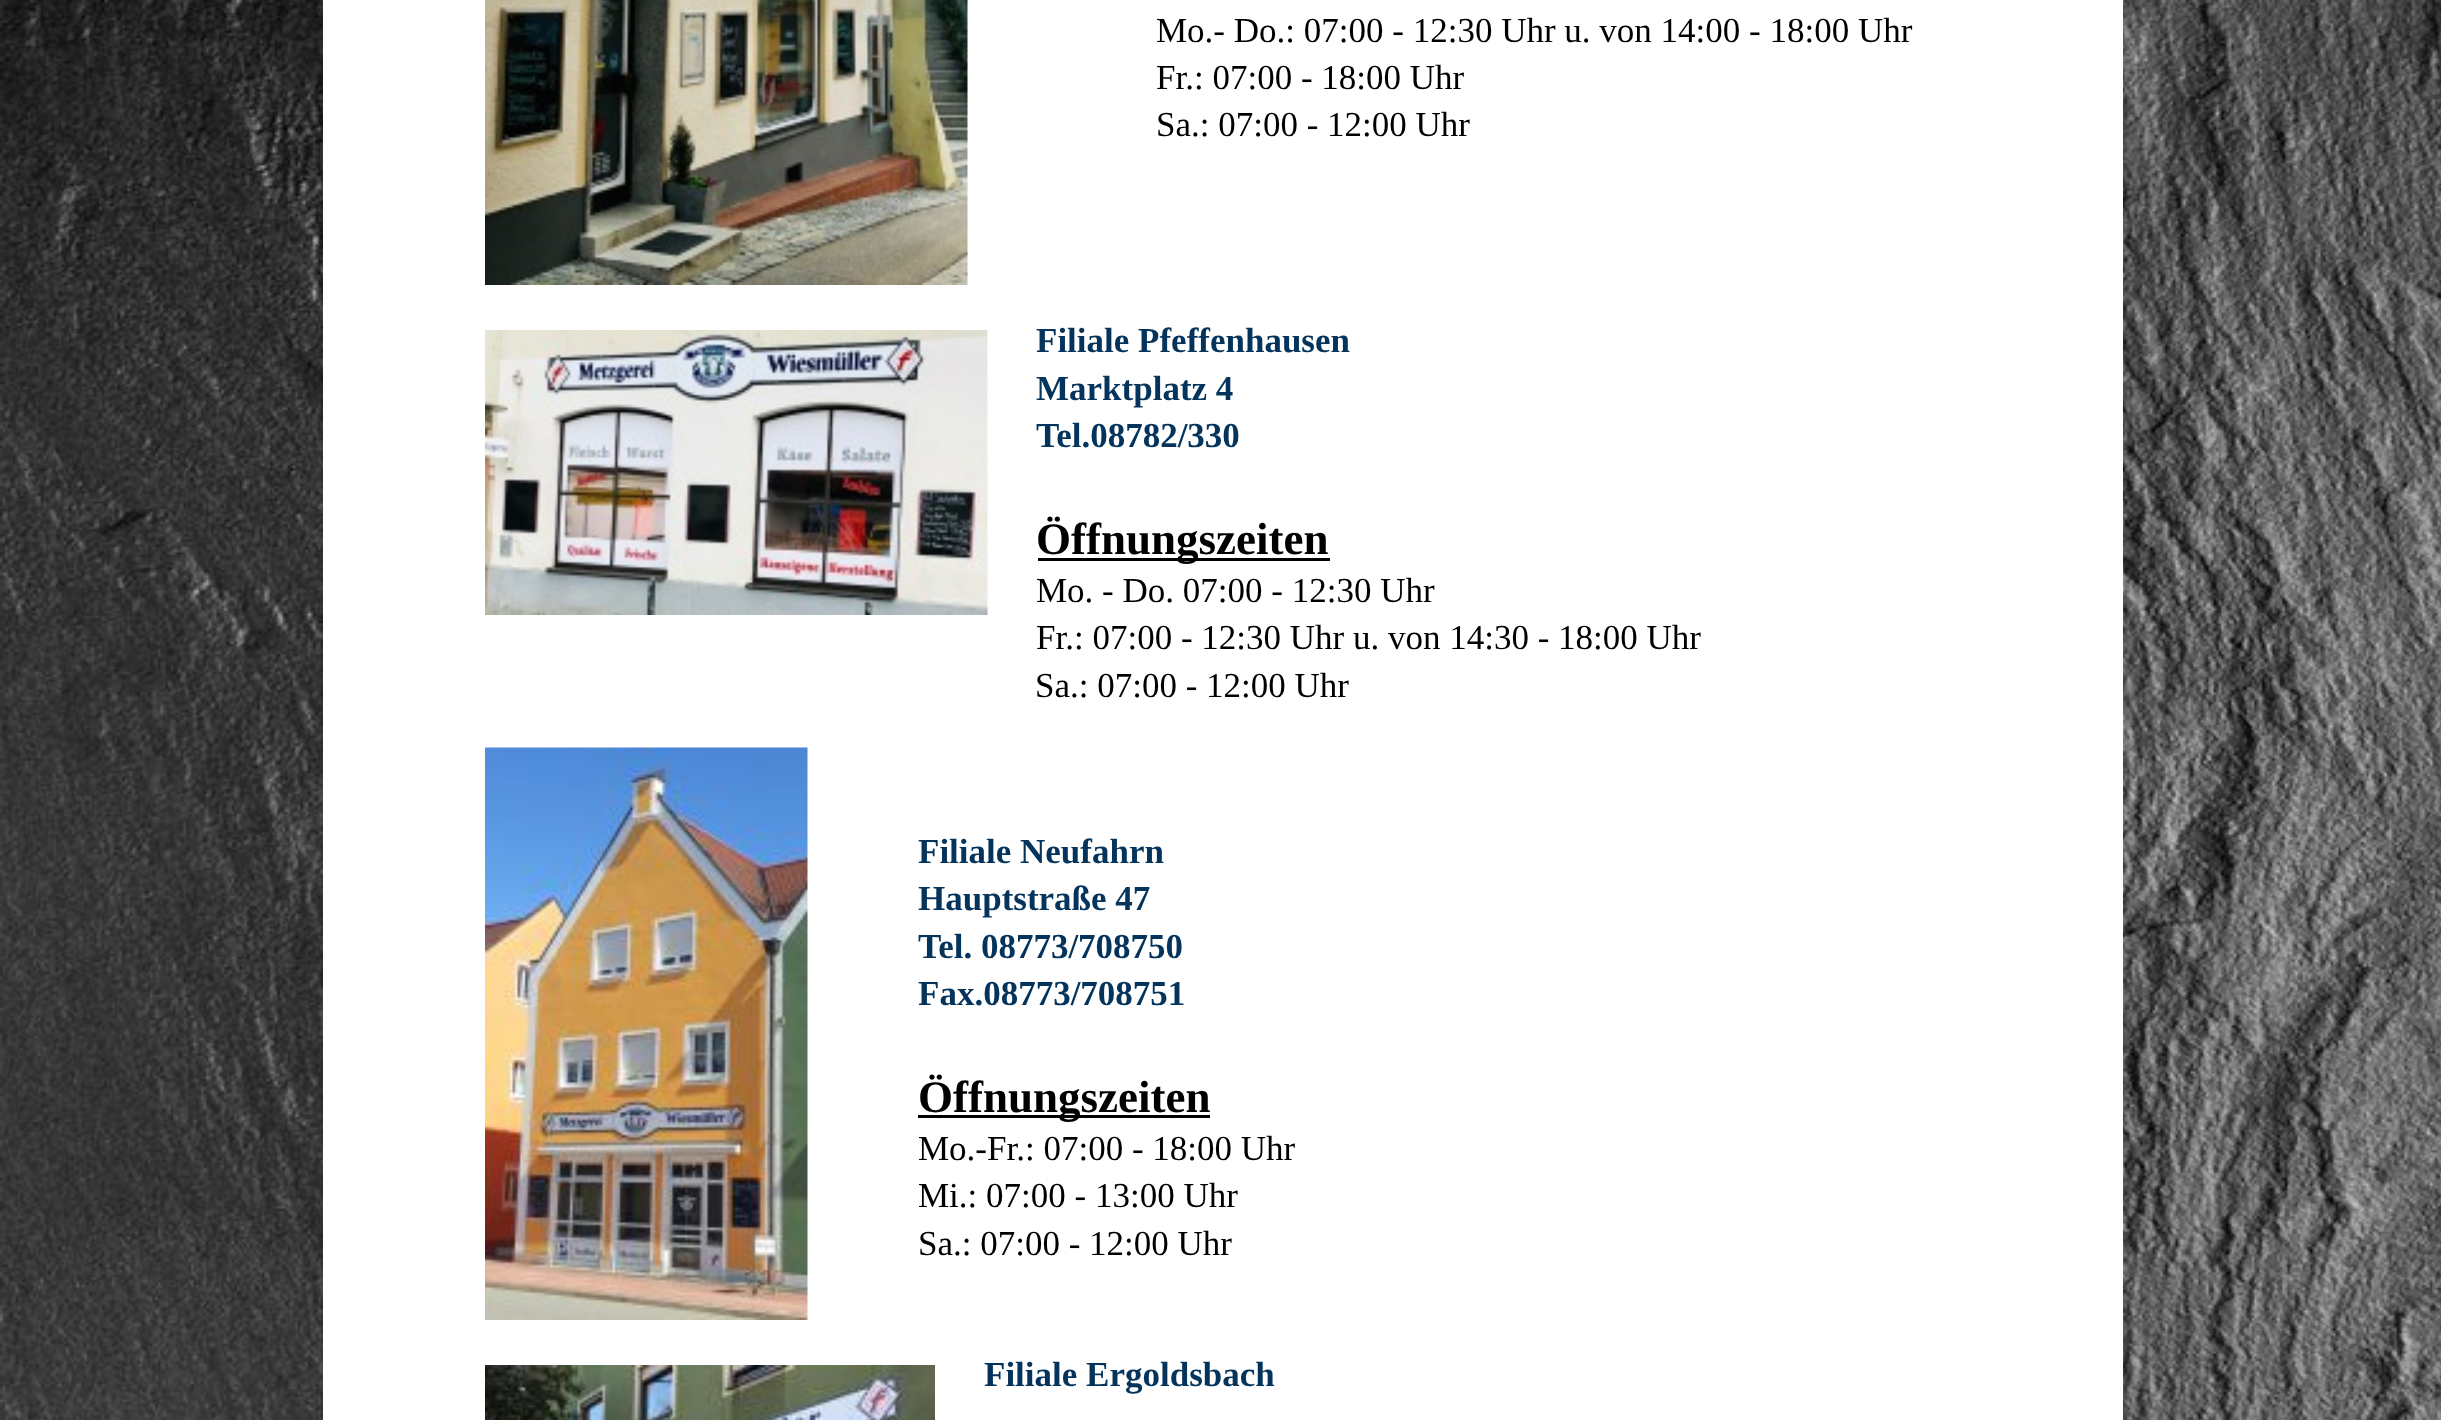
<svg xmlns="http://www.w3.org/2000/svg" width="2441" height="1420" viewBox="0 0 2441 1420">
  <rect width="100%" height="100%" fill="rgb(255,255,255)"/>
  <image x="0" y="0" width="2441" height="1420" href="pic1.png"/>
  <rect x="323" y="0" width="1800" height="1420" fill="rgb(255,255,255)"/>
  <image x="485" y="0" width="483" height="285" href="pic2.png"/>
  <g font-family="Liberation Serif" font-size="35" fill="rgb(0,0,0)">
    <text>
      <tspan x="1156" y="42">Mo.- Do.: 07:00 - 12:30 Uhr u. von 14:00 - 18:00 Uhr</tspan>
      <tspan x="1156" y="89">Fr.: 07:00 - 18:00 Uhr</tspan>
      <tspan x="1156" y="136">Sa.: 07:00 - 12:00 Uhr</tspan>
    </text>
  </g>
  <image x="485" y="330" width="503" height="285" href="pic3.png"/>
  <g font-family="Liberation Serif" font-size="35" font-weight="bold" fill="rgb(4,52,92)">
    <text>
      <tspan x="1036" y="352">Filiale Pfeffenhausen</tspan>
      <tspan x="1036" y="400">Marktplatz 4</tspan>
      <tspan x="1036" y="447">Tel.08782/330</tspan>
    </text>
  </g>
  <rect x="1038" y="558" width="292" height="3" fill="rgb(0,0,0)"/>
  <text x="1036" y="554" font-family="Liberation Serif" font-size="45" font-weight="bold" fill="rgb(0,0,0)">Öffnungszeiten</text>
  <g font-family="Liberation Serif" font-size="35" fill="rgb(0,0,0)">
    <text>
      <tspan x="1036" y="602">Mo. - Do. 07:00 - 12:30 Uhr</tspan>
      <tspan x="1036" y="649">Fr.: 07:00 - 12:30 Uhr u. von 14:30 - 18:00 Uhr</tspan>
    </text>
    <text x="1035" y="697">Sa.: 07:00 - 12:00 Uhr</text>
  </g>
  <image x="485" y="747" width="323" height="573" href="pic4.png"/>
  <g font-family="Liberation Serif" font-size="35" font-weight="bold" fill="rgb(4,52,92)">
    <text>
      <tspan x="918" y="863">Filiale Neufahrn</tspan>
      <tspan x="918" y="910">Hauptstraße 47</tspan>
      <tspan x="918" y="958">Tel. 08773/708750</tspan>
      <tspan x="918" y="1005">Fax.08773/708751</tspan>
    </text>
  </g>
  <rect x="918" y="1115" width="292" height="3" fill="rgb(0,0,0)"/>
  <text x="918" y="1112" font-family="Liberation Serif" font-size="45" font-weight="bold" fill="rgb(0,0,0)">Öffnungszeiten</text>
  <g font-family="Liberation Serif" font-size="35" fill="rgb(0,0,0)">
    <text>
      <tspan x="918" y="1160">Mo.-Fr.: 07:00 - 18:00 Uhr</tspan>
      <tspan x="918" y="1207">Mi.: 07:00 - 13:00 Uhr</tspan>
      <tspan x="918" y="1255">Sa.: 07:00 - 12:00 Uhr</tspan>
    </text>
  </g>
  <image x="485" y="1365" width="450" height="55" href="pic5.png"/>
  <text x="984" y="1386" font-family="Liberation Serif" font-size="35" font-weight="bold" fill="rgb(4,52,92)">Filiale Ergoldsbach</text>
</svg>
